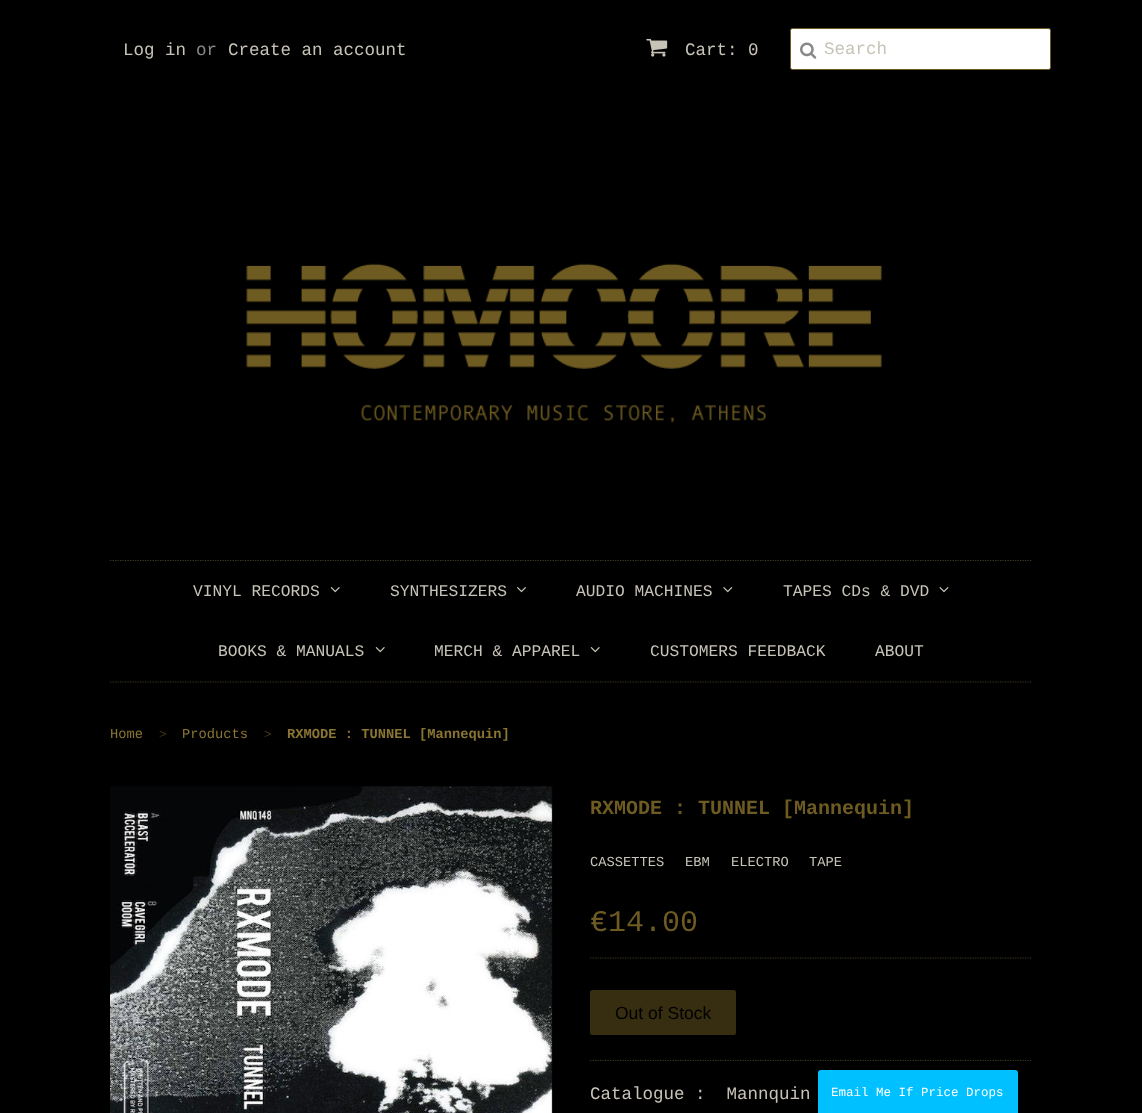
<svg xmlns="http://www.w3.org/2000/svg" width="1142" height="1113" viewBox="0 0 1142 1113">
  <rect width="100%" height="100%" fill="rgb(0,0,0)"/>
  <text x="123" y="55" font-family="Liberation Mono" font-size="17.5" fill="rgb(199,195,183)">Log in</text>
  <text x="196" y="55" font-family="Liberation Mono" font-size="17.5" fill="rgb(136,136,136)">or</text>
  <text x="228" y="55" font-family="Liberation Mono" font-size="17.5" fill="rgb(199,195,183)">Create an account</text>
  <image x="646" y="38" width="22" height="19" href="pic1.png"/>
  <text x="685" y="55" font-family="Liberation Mono" font-size="17.5" fill="rgb(199,195,183)">Cart: 0</text>
  <rect x="790.5" y="28.5" width="260" height="41" rx="2" fill="rgb(255,255,255)" stroke="rgb(110,91,33)"/>
  <image x="800" y="42" width="17" height="17" href="pic2.png"/>
  <text x="824" y="54" font-family="Liberation Mono" font-size="17.5" fill="rgb(199,195,183)">Search</text>
  <image x="246" y="263" width="636" height="160" href="pic3.png"/>
  <path d="M110 560.5H1032.5" fill="none" stroke="rgb(66,58,34)" stroke-width="1.2" stroke-dasharray="1.25 1.25"/>
  <path d="M110 682H1032.5" fill="none" stroke="rgb(66,58,34)" stroke-width="1.2" stroke-dasharray="1.25 1.25"/>
  <text x="193" y="596" font-family="Liberation Mono" font-size="16.25" fill="rgb(199,195,183)">VINYL RECORDS</text>
  <image x="330" y="587" width="10" height="6" href="pic4.png"/>
  <text x="390" y="596" font-family="Liberation Mono" font-size="16.25" fill="rgb(199,195,183)">SYNTHESIZERS</text>
  <image x="517" y="587" width="9" height="6" href="pic5.png"/>
  <text x="576" y="596" font-family="Liberation Mono" font-size="16.25" fill="rgb(199,195,183)">AUDIO MACHINES</text>
  <image x="723" y="587" width="10" height="6" href="pic6.png"/>
  <text x="783" y="596" font-family="Liberation Mono" font-size="16.25" fill="rgb(199,195,183)">TAPES CDs &amp; DVD</text>
  <image x="939" y="587" width="10" height="6" href="pic7.png"/>
  <text x="218" y="656" font-family="Liberation Mono" font-size="16.25" fill="rgb(199,195,183)">BOOKS &amp; MANUALS</text>
  <image x="375" y="647" width="10" height="6" href="pic4.png"/>
  <text x="434" y="656" font-family="Liberation Mono" font-size="16.25" fill="rgb(199,195,183)">MERCH &amp; APPAREL</text>
  <image x="590" y="647" width="10" height="6" href="pic4.png"/>
  <g font-family="Liberation Mono" font-size="16.25" fill="rgb(199,195,183)">
    <text x="650" y="656">CUSTOMERS FEEDBACK</text>
    <text x="875" y="656">ABOUT</text>
  </g>
  <text x="110" y="738" font-family="Liberation Mono" font-size="13.75" fill="rgb(139,117,50)">Home</text>
  <text x="159" y="738" font-family="Liberation Mono" font-size="12.5" fill="rgb(70,59,25)">&gt;</text>
  <text x="182" y="738" font-family="Liberation Mono" font-size="13.75" fill="rgb(139,117,50)">Products</text>
  <text x="264" y="738" font-family="Liberation Mono" font-size="12.5" fill="rgb(70,59,25)">&gt;</text>
  <text x="287" y="738" font-family="Liberation Mono" font-size="13.75" font-weight="bold" fill="rgb(139,117,50)">RXMODE : TUNNEL [Mannequin]</text>
  <image x="110" y="786" width="443" height="327" href="pic8.png"/>
  <text x="590" y="814" font-family="Liberation Mono" font-size="20" font-weight="bold" fill="rgb(110,91,33)">RXMODE : TUNNEL [Mannequin]</text>
  <g font-family="Liberation Mono" font-size="13.75" fill="rgb(199,195,183)">
    <text x="590" y="866">CASSETTES</text>
    <text x="685" y="866">EBM</text>
    <text x="731" y="866">ELECTRO</text>
    <text x="809" y="866">TAPE</text>
  </g>
  <text x="590" y="931" font-family="Liberation Mono" font-size="30" fill="rgb(110,91,33)">€14.00</text>
  <path d="M590 958H1032.5" fill="none" stroke="rgb(66,58,34)" stroke-width="1.2" stroke-dasharray="1.25 1.25"/>
  <path d="M590 1060.5H1032.5" fill="none" stroke="rgb(66,58,34)" stroke-width="1.2" stroke-dasharray="1.25 1.25"/>
  <rect x="590" y="990" width="146" height="45" rx="2.5" fill="rgb(55,46,17)"/>
  <text x="615" y="1019" font-family="Liberation Sans" font-size="17.5" fill="rgb(0,0,0)">Out of Stock</text>
  <text x="590" y="1099" font-family="Liberation Mono" font-size="17.5" fill="rgb(199,195,183)" xml:space="preserve">Catalogue :  Mannquin</text>
  <rect x="818" y="1070" width="200" height="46" rx="3" fill="rgb(0,192,255)"/>
  <text x="831" y="1096" font-family="Liberation Mono" font-size="12.5" fill="rgb(255,255,255)">Email Me If Price Drops</text>
</svg>
